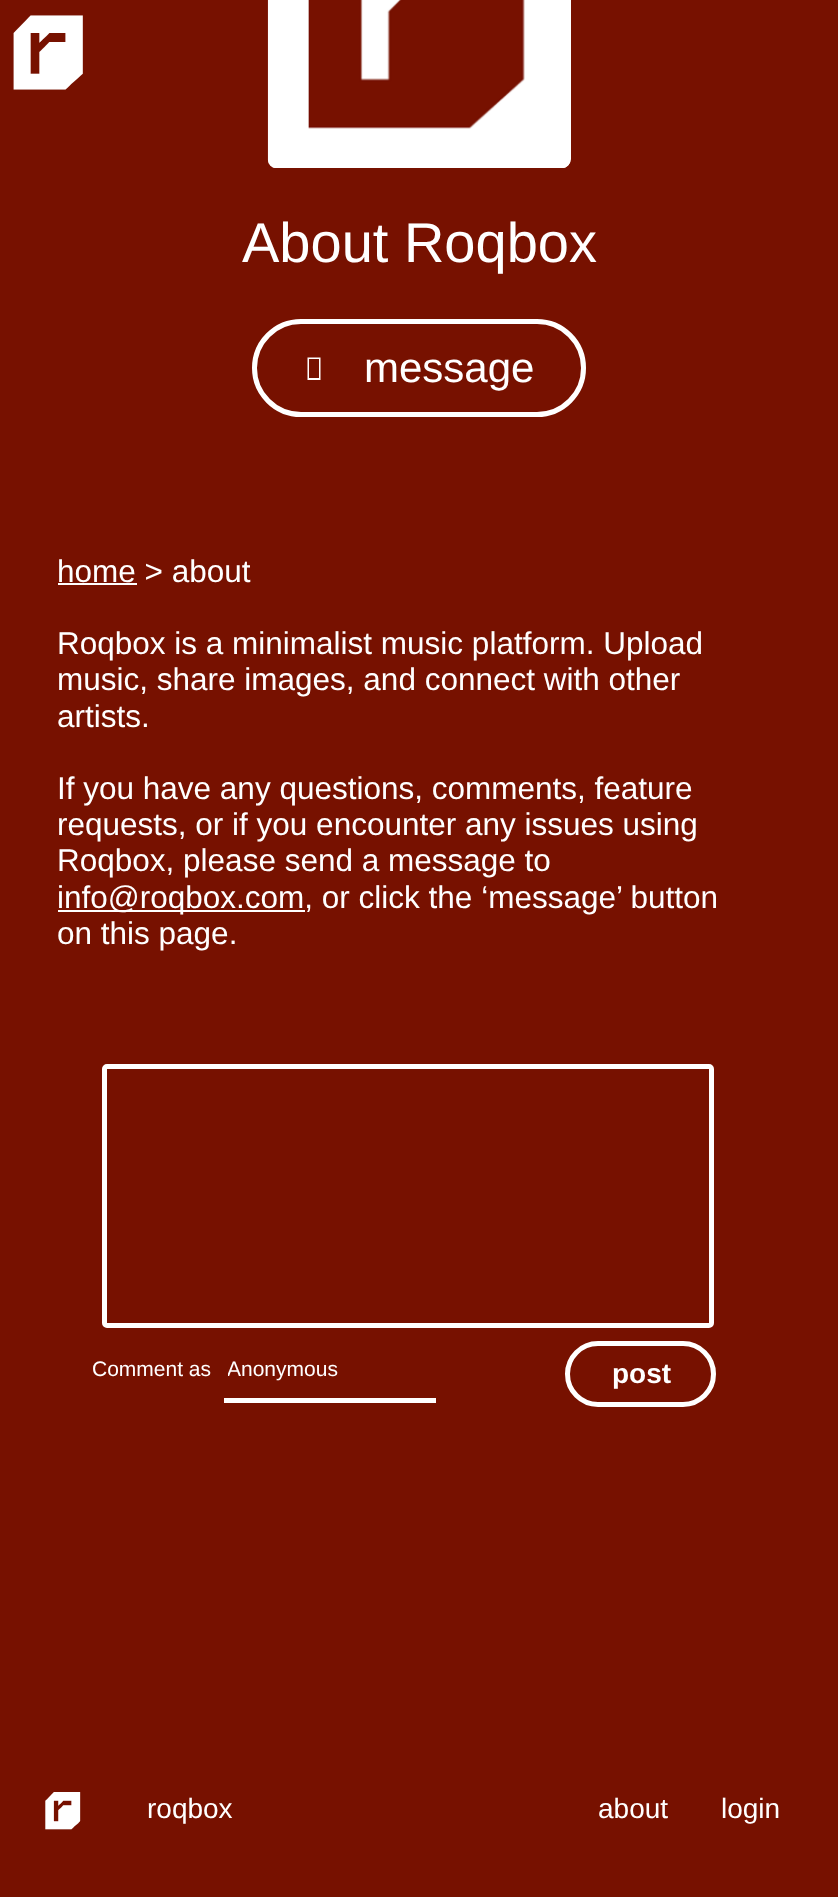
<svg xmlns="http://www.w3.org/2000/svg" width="838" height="1897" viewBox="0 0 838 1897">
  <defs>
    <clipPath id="clip1"><rect x="228" y="1358" width="204" height="25"/></clipPath>
  </defs>
  <rect width="100%" height="100%" fill="rgb(119,17,0)"/>
  <text x="7" y="95" font-family="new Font" font-size="175" fill="rgb(255,255,255)">r</text>
  <image x="267" y="0" width="304" height="168" href="pic1.png"/>
  <rect x="270.5" y="-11.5" width="298" height="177" rx="6.5" fill="none" stroke="rgb(255,255,255)" stroke-width="5"/>
  <text x="242" y="262" font-family="Liberation Sans" font-size="56" fill="rgb(255,255,255)">About Roqbox</text>
  <rect x="254.5" y="321.5" width="329" height="93" rx="46.5" fill="none" stroke="rgb(255,255,255)" stroke-width="5"/>
  <path d="M307.5 380V357.5H320.5V380ZM309 378H319V359H309Z" fill="rgb(255,255,255)"/>
  <text x="364" y="382" font-family="Liberation Sans" font-size="42" fill="rgb(255,255,255)">message</text>
  <text x="57" y="582" font-family="Liberation Sans" font-size="31.5" fill="rgb(255,255,255)">home &gt; about</text>
  <rect x="58" y="583" width="79" height="2" fill="rgb(255,255,255)"/>
  <g font-family="Liberation Sans" font-size="31.5" fill="rgb(255,255,255)">
    <text>
      <tspan x="57" y="654">Roqbox is a minimalist music platform. Upload</tspan>
      <tspan x="57" y="690">music, share images, and connect with other</tspan>
      <tspan x="57" y="727">artists.</tspan>
    </text>
    <text>
      <tspan x="57" y="799">If you have any questions, comments, feature</tspan>
      <tspan x="57" y="835">requests, or if you encounter any issues using</tspan>
      <tspan x="57" y="871">Roqbox, please send a message to</tspan>
    </text>
  </g>
  <rect x="58" y="910" width="247" height="2" fill="rgb(255,255,255)"/>
  <g font-family="Liberation Sans" font-size="31.5" fill="rgb(255,255,255)">
    <text>
      <tspan x="57" y="908">info@roqbox.com, or click the ‘message’ button</tspan>
      <tspan x="57" y="944">on this page.</tspan>
    </text>
  </g>
  <rect x="104.5" y="1066.5" width="607" height="259" rx="2.5" fill="none" stroke="rgb(255,255,255)" stroke-width="5"/>
  <text x="92" y="1376" font-family="Liberation Sans" font-size="21" fill="rgb(255,255,255)">Comment as</text>
  <rect x="224" y="1398" width="212" height="5" fill="rgb(255,255,255)"/>
  <g clip-path="url(#clip1)">
    <text x="227" y="1376" font-family="Liberation Sans" font-size="21" fill="rgb(255,255,255)">Anonymous</text>
  </g>
  <rect x="567.5" y="1343.5" width="146" height="61" rx="30.5" fill="none" stroke="rgb(255,255,255)" stroke-width="5"/>
  <text x="612" y="1383" font-family="Liberation Sans" font-size="28" font-weight="bold" fill="rgb(255,255,255)">post</text>
  <text x="42" y="1832" font-family="new Font" font-size="88" fill="rgb(255,255,255)">r</text>
  <g font-family="Liberation Sans" font-size="28" fill="rgb(255,255,255)">
    <text x="147" y="1818">roqbox</text>
    <text x="598" y="1818">about</text>
    <text x="721" y="1818">login</text>
  </g>
</svg>
